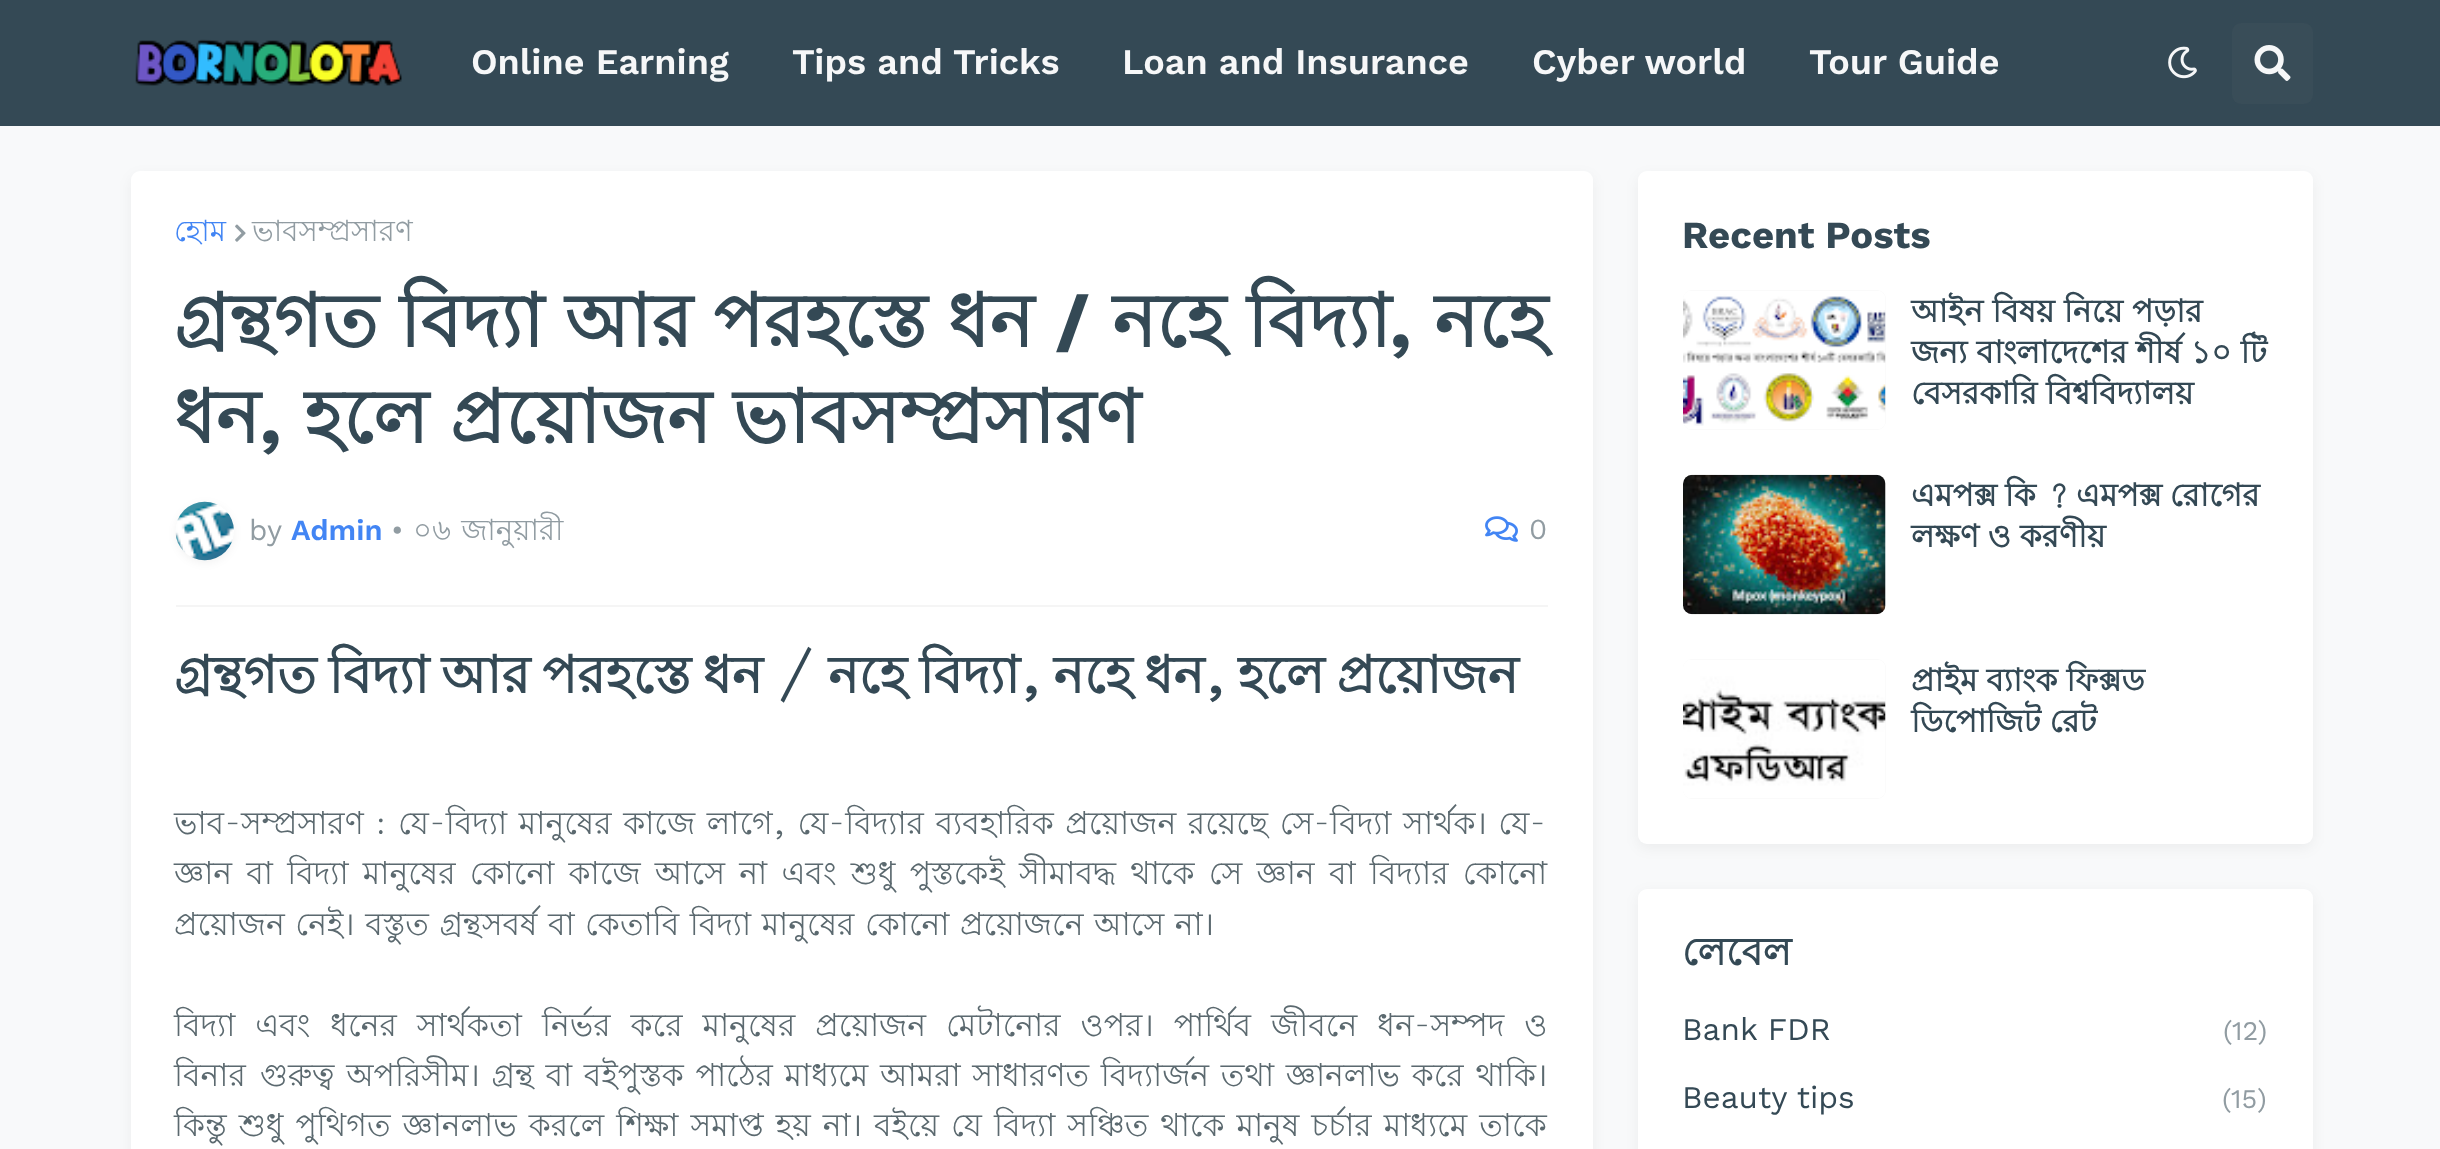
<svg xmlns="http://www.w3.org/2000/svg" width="2440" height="1149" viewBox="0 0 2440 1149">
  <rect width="100%" height="100%" fill="rgb(248,249,250)"/>
  <rect x="0" y="0" width="2440" height="126" fill="rgb(52,73,85)"/>
  <image x="135" y="39" width="267" height="47" href="pic1.png"/>
  <g font-family="Work Sans" font-size="36" font-weight="600" fill="rgb(246,247,248)">
    <text x="471" y="74">Online Earning</text>
    <text x="792" y="74">Tips and Tricks</text>
    <text x="1122" y="74">Loan and Insurance</text>
    <text x="1532" y="74">Cyber world</text>
    <text x="1809" y="74">Tour Guide</text>
  </g>
  <image x="2168" y="46" width="29" height="33" href="pic2.png"/>
  <rect x="2232" y="23" width="81" height="81" rx="9" fill="rgb(57,77,88)"/>
  <image x="2254" y="45" width="37" height="36" href="pic3.png"/>
  <rect x="131" y="176" width="1462" height="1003" rx="9" fill="rgba(0,0,0,0.05)" filter="blur(7px)"/>
  <rect x="131" y="171" width="1462" height="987" rx="9" fill="rgb(255,255,255)"/>
  <rect x="176" y="605" width="1372" height="2" fill="rgb(245,245,245)"/>
  <text x="174" y="241" font-family="Lohit Bengali" font-size="29.25" fill="rgb(66,133,244)">হোম</text>
  <image x="235" y="224" width="11" height="18" href="pic4.png"/>
  <text x="252" y="241" font-family="Lohit Bengali" font-size="29.25" fill="rgb(145,156,162)">ভাবসম্প্রসারণ</text>
  <text x="174" y="347" word-spacing="0.5" font-family="Lohit Bengali" font-size="74.25" font-weight="bold" fill="rgb(52,73,85)">গ্রন্থগত বিদ্যা আর পরহস্তে ধন</text>
  <text x="1055" y="347" font-family="Work Sans" font-size="74.25" font-weight="bold" fill="rgb(52,73,85)">/</text>
  <text x="1112" y="347" word-spacing="0.5" font-family="Lohit Bengali" font-size="74.25" font-weight="bold" fill="rgb(52,73,85)">নহে বিদ্যা</text>
  <text x="1390" y="347" font-family="Work Sans" font-size="74.25" font-weight="bold" fill="rgb(52,73,85)">,</text>
  <g font-family="Lohit Bengali" font-size="74.25" font-weight="bold" fill="rgb(52,73,85)">
    <text x="1434" y="347">নহে</text>
    <text x="174" y="443">ধন</text>
  </g>
  <text x="260" y="443" font-family="Work Sans" font-size="74.25" font-weight="bold" fill="rgb(52,73,85)">,</text>
  <text x="304" y="443" word-spacing="1" font-family="Lohit Bengali" font-size="74.25" font-weight="bold" fill="rgb(52,73,85)">হলে প্রয়োজন ভাবসম্প্রসারণ</text>
  <rect x="176" y="504" width="58" height="59" rx="29" fill="rgba(0,0,0,0.05)" filter="blur(4.5px)"/>
  <image x="175" y="501" width="59" height="60" href="pic5.png"/>
  <text x="249" y="540" font-family="Work Sans" font-size="29.25" fill="rgb(145,156,162)">by</text>
  <text x="291" y="540" font-family="Work Sans" font-size="29.25" font-weight="600" fill="rgb(66,133,244)">Admin</text>
  <text x="391" y="540" font-family="Work Sans" font-size="29.25" fill="rgb(145,156,162)">•</text>
  <text x="413" y="540" word-spacing="2" font-family="Lohit Bengali" font-size="29.25" fill="rgb(145,156,162)">০৬ জানুয়ারী</text>
  <image x="1485" y="516" width="33" height="26" href="pic6.png"/>
  <text x="1529" y="539" font-family="Work Sans" font-size="29.25" fill="rgb(145,156,162)">0</text>
  <text x="174" y="693" word-spacing="-2.25" font-family="Lohit Bengali" font-size="51.75" font-weight="bold" fill="rgb(52,73,85)">গ্রন্থগত বিদ্যা আর পরহস্তে ধন / নহে বিদ্যা, নহে ধন, হলে প্রয়োজন</text>
  <g font-family="Lohit Bengali" font-size="31.5" fill="rgb(91,105,111)">
    <text>
      <tspan x="174" y="834" word-spacing="2.9">ভাব-সম্প্রসারণ : যে-বিদ্যা মানুষের কাজে লাগে, যে-বিদ্যার ব্যবহারিক প্রয়োজন রয়েছে সে-বিদ্যা সার্থক। যে-</tspan>
      <tspan x="174" y="884" word-spacing="5.5">জ্ঞান বা বিদ্যা মানুষের কোনো কাজে আসে না এবং শুধু পুস্তকেই সীমাবদ্ধ থাকে সে জ্ঞান বা বিদ্যার কোনো</tspan>
      <tspan x="174" y="935" word-spacing="1.8">প্রয়োজন নেই। বস্তুত গ্রন্থসবর্ষ বা কেতাবি বিদ্যা মানুষের কোনো প্রয়োজনে আসে না।</tspan>
    </text>
    <text>
      <tspan x="174" y="1036" word-spacing="11.25">বিদ্যা এবং ধনের সার্থকতা নির্ভর করে মানুষের প্রয়োজন মেটানোর ওপর। পার্থিব জীবনে ধন-সম্পদ ও</tspan>
      <tspan x="174" y="1086">বিনার</tspan>
    </text>
    <text x="260" y="1086" word-spacing="3">গুরুত্ব অপরিসীম। গ্রন্থ বা বইপুস্তক পাঠের মাধ্যমে আমরা সাধারণত বিদ্যার্জন তথা জ্ঞানলাভ করে থাকি।</text>
    <text x="174" y="1136" word-spacing="3.25">কিন্তু শুধু পুথিগত জ্ঞানলাভ করলে শিক্ষা সমাপ্ত হয় না। বইয়ে যে বিদ্যা সঞ্চিত থাকে মানুষ চর্চার মাধ্যমে তাকে</text>
  </g>
  <rect x="1638" y="176" width="675" height="672" rx="9" fill="rgba(0,0,0,0.05)" filter="blur(7px)"/>
  <rect x="1638" y="171" width="675" height="673" rx="9" fill="rgb(255,255,255)"/>
  <text x="1682" y="248" font-family="Work Sans" font-size="38.25" font-weight="bold" fill="rgb(52,73,85)">Recent Posts</text>
  <rect x="1683" y="290" width="203" height="140" rx="9" fill="rgb(250,250,250)"/>
  <image x="1683" y="291" width="203" height="138" href="pic7.png"/>
  <g font-family="Lohit Bengali" font-size="31.5" font-weight="bold" fill="rgb(52,73,85)">
    <text>
      <tspan x="1911" y="322" word-spacing="0.5">আইন বিষয় নিয়ে পড়ার</tspan>
      <tspan x="1911" y="363" word-spacing="0.5">জন্য বাংলাদেশের শীর্ষ ১০ টি</tspan>
      <tspan x="1911" y="404">বেসরকারি বিশ্ববিদ্যালয়</tspan>
    </text>
  </g>
  <rect x="1683" y="475" width="203" height="139" rx="9" fill="rgb(250,250,250)"/>
  <image x="1683" y="474" width="203" height="141" href="pic8.png"/>
  <g font-family="Lohit Bengali" font-size="31.5" font-weight="bold" fill="rgb(52,73,85)">
    <text>
      <tspan x="1911" y="506" word-spacing="-1">এমপক্স কি ? এমপক্স রোগের</tspan>
      <tspan x="1911" y="547">লক্ষণ ও করণীয়</tspan>
    </text>
  </g>
  <rect x="1683" y="659" width="203" height="140" rx="9" fill="rgb(250,250,250)"/>
  <image x="1683" y="660" width="203" height="138" href="pic9.png"/>
  <g font-family="Lohit Bengali" font-size="31.5" font-weight="bold" fill="rgb(52,73,85)">
    <text>
      <tspan x="1911" y="691">প্রাইম ব্যাংক ফিক্সড</tspan>
      <tspan x="1911" y="732">ডিপোজিট রেট</tspan>
    </text>
  </g>
  <rect x="1638" y="893" width="675" height="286" rx="9" fill="rgba(0,0,0,0.05)" filter="blur(7px)"/>
  <rect x="1638" y="889" width="675" height="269" rx="9" fill="rgb(255,255,255)"/>
  <text x="1682" y="965" font-family="Lohit Bengali" font-size="38.25" font-weight="bold" fill="rgb(52,73,85)">লেবেল</text>
  <text x="1682" y="1040" font-family="Work Sans" font-size="31.5" fill="rgb(52,73,85)">Bank FDR</text>
  <text x="2223" y="1040" font-family="Work Sans" font-size="27" fill="rgb(145,156,162)">(12)</text>
  <text x="1682" y="1108" font-family="Work Sans" font-size="31.5" fill="rgb(52,73,85)">Beauty tips</text>
  <text x="2222" y="1108" font-family="Work Sans" font-size="27" fill="rgb(145,156,162)">(15)</text>
</svg>
